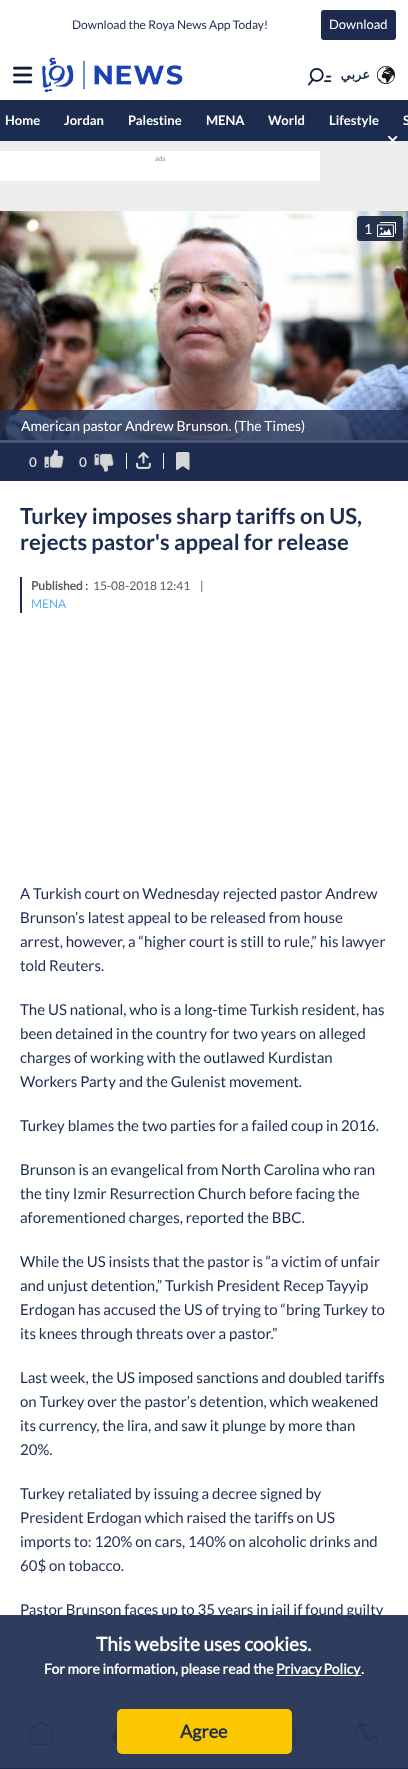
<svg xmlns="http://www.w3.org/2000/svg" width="408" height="1769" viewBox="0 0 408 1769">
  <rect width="100%" height="100%" fill="rgb(237,237,237)"/>
  <rect x="0" y="0" width="408" height="100" fill="rgb(255,255,255)"/>
  <text x="72" y="29" font-family="Lato" font-size="12" fill="rgb(28,43,79)">Download the Roya News App Today!</text>
  <rect x="321" y="10" width="75" height="30" rx="3" fill="rgb(28,43,79)"/>
  <text x="329" y="29" font-family="Lato" font-size="13" fill="rgb(255,255,255)">Download</text>
  <image x="13" y="66" width="20" height="18" href="pic1.png"/>
  <image x="42" y="57" width="141" height="35" href="pic2.png"/>
  <image x="308" y="68" width="24" height="18" href="pic3.png"/>
  <text x="370" y="79" font-family="DejaVu Sans" font-size="13" font-weight="bold" direction="rtl" fill="rgb(28,43,79)">عربي</text>
  <image x="377" y="66" width="18" height="18" href="pic4.png"/>
  <rect x="0" y="100" width="408" height="41" fill="rgb(27,44,79)"/>
  <g font-family="Lato" font-size="13" font-weight="bold" fill="rgb(255,255,255)">
    <text x="5" y="125">Home</text>
    <text x="64" y="125">Jordan</text>
    <text x="128" y="125">Palestine</text>
    <text x="206" y="125">MENA</text>
    <text x="268" y="125">World</text>
    <text x="329" y="125">Lifestyle</text>
    <text x="403" y="125">S</text>
  </g>
  <image x="388" y="135" width="10" height="10" href="pic5.png"/>
  <rect x="0" y="481" width="408" height="1228" fill="rgb(255,255,255)"/>
  <text x="20" y="1615" font-family="Lato" font-size="15" fill="rgb(28,43,79)">Pastor Brunson faces up to 35 years in jail if found guilty</text>
  <rect x="0" y="1709" width="408" height="1" fill="rgb(240,240,240)"/>
  <rect x="0" y="1710" width="163" height="58" fill="rgb(255,255,255)"/>
  <image x="29" y="1721" width="24" height="24" href="pic12.png"/>
  <rect x="245" y="1710" width="163" height="58" fill="rgb(255,255,255)"/>
  <image x="292" y="1724" width="5" height="21" href="pic13.png"/>
  <image x="111" y="1725" width="6" height="20" href="pic14.png"/>
  <image x="355" y="1722" width="24" height="22" href="pic15.png"/>
  <rect x="163" y="1754" width="82" height="14" fill="rgb(255,255,255)"/>
  <rect x="0" y="1615" width="408" height="153" fill="rgba(28,43,79,0.92)"/>
  <text x="96" y="1651" font-family="'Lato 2'" font-size="19" font-weight="bold" fill="rgb(255,255,255)">This website uses cookies.</text>
  <text x="44" y="1674" font-family="'Lato 2'" font-size="14" font-weight="bold" fill="rgb(255,255,255)">For more information, please read the</text>
  <rect x="276" y="1675" width="85" height="1" fill="rgb(255,255,255)"/>
  <g font-family="'Lato 2'" font-size="14" font-weight="bold" fill="rgb(255,255,255)">
    <text x="276" y="1674" word-spacing="-1">Privacy Policy</text>
    <text x="361" y="1674">.</text>
  </g>
  <rect x="117" y="1709" width="175" height="45" rx="5" fill="rgb(251,199,0)"/>
  <text x="180" y="1738" font-family="'Lato 2'" font-size="18" font-weight="bold" fill="rgb(28,43,79)">Agree</text>
  <rect x="0" y="151" width="320" height="30" fill="rgb(255,255,255)"/>
  <text x="155" y="161" font-family="Lato" font-size="7" fill="rgb(145,141,141)">ads</text>
  <image x="0" y="211" width="408" height="229" href="pic6.png"/>
  <rect x="357" y="216" width="46" height="25" rx="3" fill="rgba(15,28,60,0.89)"/>
  <text x="364" y="234" font-family="Lato" font-size="14" fill="rgb(255,255,255)">1</text>
  <image x="377" y="222" width="19" height="15" href="pic7.png"/>
  <rect x="0" y="410" width="408" height="33" fill="rgba(28,43,79,0.78)"/>
  <text x="21" y="431" font-family="Lato" font-size="14" fill="rgb(255,255,255)">American pastor Andrew Brunson. (The Times)</text>
  <rect x="0" y="443" width="408" height="38" fill="rgb(28,43,79)"/>
  <text x="29" y="467" font-family="'Lato 2'" font-size="13" font-weight="bold" fill="rgb(214,214,214)">0</text>
  <image x="44" y="449" width="20" height="20" href="pic8.png"/>
  <text x="79" y="467" font-family="'Lato 2'" font-size="13" font-weight="bold" fill="rgb(214,214,214)">0</text>
  <image x="94" y="453" width="20" height="20" href="pic9.png"/>
  <rect x="126" y="453" width="1" height="16" fill="rgb(240,240,240)"/>
  <image x="136" y="452" width="15" height="17" href="pic10.png"/>
  <rect x="163" y="453" width="1" height="16" fill="rgb(240,240,240)"/>
  <image x="176" y="452" width="14" height="18" href="pic11.png"/>
  <g font-family="Lato" font-size="22" font-weight="bold" fill="rgb(28,43,79)">
    <text>
      <tspan x="20" y="524">Turkey imposes sharp tariffs on US,</tspan>
      <tspan x="20" y="550">rejects pastor's appeal for release</tspan>
    </text>
  </g>
  <rect x="20" y="577" width="2" height="36" fill="rgb(28,43,79)"/>
  <text x="31" y="590" font-family="'Lato 2'" font-size="12" font-weight="bold" fill="rgb(89,89,89)">Published :</text>
  <g font-family="Lato" font-size="12" fill="rgb(89,89,89)">
    <text x="93" y="590">15-08-2018 12:41</text>
    <text x="200" y="590">|</text>
  </g>
  <text x="31" y="608" font-family="Lato" font-size="12" fill="rgb(94,174,255)">MENA</text>
  <g font-family="Lato" font-size="15" fill="rgb(28,43,79)">
    <text>
      <tspan x="20" y="899">A Turkish court on Wednesday rejected pastor Andrew</tspan>
      <tspan x="20" y="923">Brunson’s latest appeal to be released from house</tspan>
      <tspan x="20" y="947">arrest, however, a “higher court is still to rule,” his lawyer</tspan>
      <tspan x="20" y="971">told Reuters.</tspan>
    </text>
    <text>
      <tspan x="20" y="1015">The US national, who is a long-time Turkish resident, has</tspan>
      <tspan x="20" y="1039">been detained in the country for two years on alleged</tspan>
      <tspan x="20" y="1063">charges of working with the outlawed Kurdistan</tspan>
      <tspan x="20" y="1087">Workers Party and the Gulenist movement.</tspan>
    </text>
    <text x="20" y="1131">Turkey blames the two parties for a failed coup in 2016.</text>
    <text>
      <tspan x="20" y="1175">Brunson is an evangelical from North Carolina who ran</tspan>
      <tspan x="20" y="1199">the tiny Izmir Resurrection Church before facing the</tspan>
      <tspan x="20" y="1223">aforementioned charges, reported the BBC.</tspan>
    </text>
    <text>
      <tspan x="20" y="1267">While the US insists that the pastor is “a victim of unfair</tspan>
      <tspan x="20" y="1291">and unjust detention,” Turkish President Recep Tayyip</tspan>
      <tspan x="20" y="1315">Erdogan has accused the US of trying to “bring Turkey to</tspan>
      <tspan x="20" y="1339">its knees through threats over a pastor.”</tspan>
    </text>
    <text>
      <tspan x="20" y="1383">Last week, the US imposed sanctions and doubled tariffs</tspan>
      <tspan x="20" y="1407">on Turkey over the pastor’s detention, which weakened</tspan>
      <tspan x="20" y="1431">its currency, the lira, and saw it plunge by more than</tspan>
      <tspan x="20" y="1455">20%.</tspan>
    </text>
    <text>
      <tspan x="20" y="1499">Turkey retaliated by issuing a decree signed by</tspan>
      <tspan x="20" y="1523">President Erdogan which raised the tariffs on US</tspan>
      <tspan x="20" y="1547">imports to: 120% on cars, 140% on alcoholic drinks and</tspan>
      <tspan x="20" y="1571">60$ on tobacco.</tspan>
    </text>
  </g>
  <rect x="0" y="1768" width="408" height="1" fill="rgb(28,43,79)"/>
</svg>
